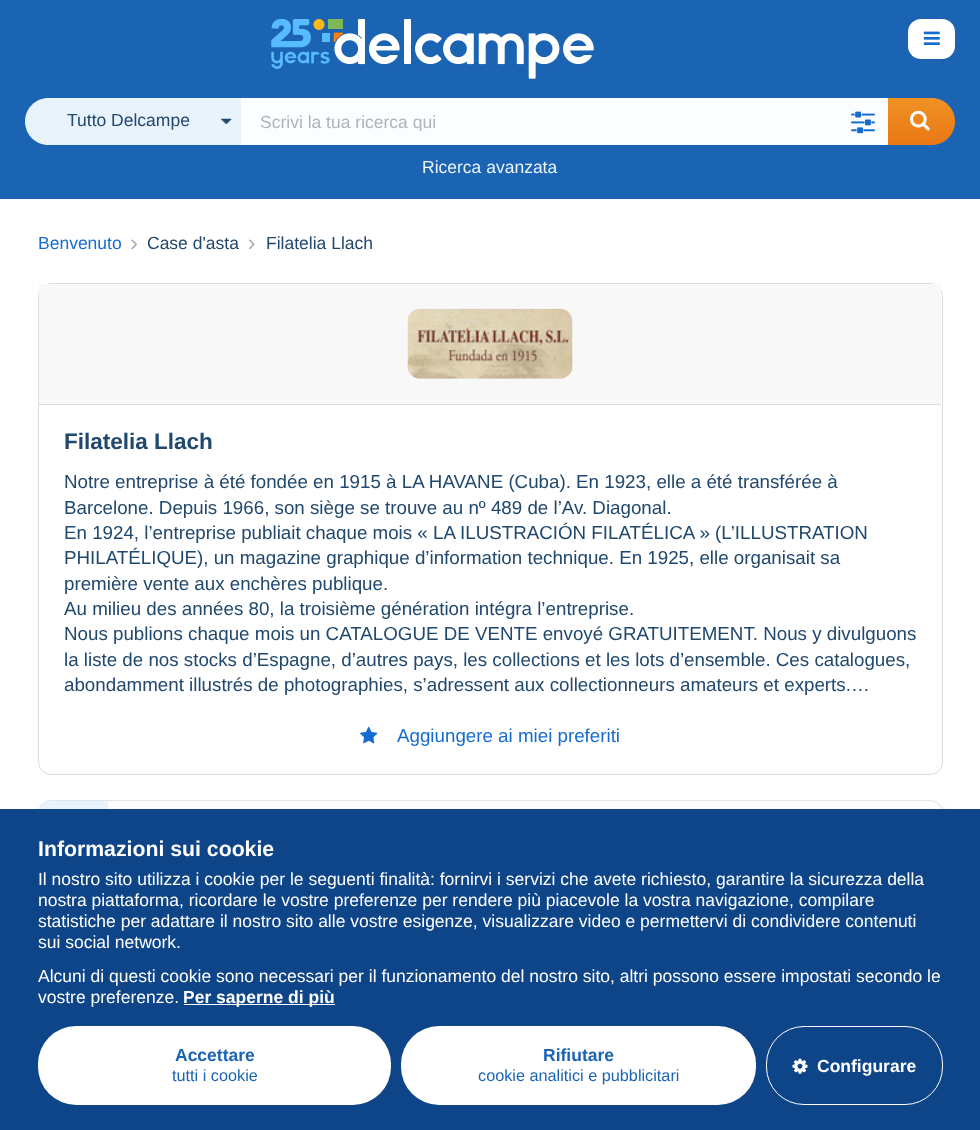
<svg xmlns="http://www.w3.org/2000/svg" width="980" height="1130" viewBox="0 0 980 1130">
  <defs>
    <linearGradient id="g1" gradientUnits="userSpaceOnUse" x1="920" y1="98" x2="920" y2="145"><stop offset="0" stop-color="rgb(240,146,36)"/><stop offset="0.99" stop-color="rgb(234,119,20)"/></linearGradient>
    <clipPath id="clip1"><rect x="260" y="111" width="573" height="20"/></clipPath>
  </defs>
  <rect width="100%" height="100%" fill="rgb(255,255,255)"/>
  <rect x="0" y="0" width="980" height="199" fill="rgb(27,100,179)"/>
  <image x="271" y="19" width="323" height="60" href="pic1.png"/>
  <rect x="908" y="19" width="47" height="40" rx="13" fill="rgb(255,255,255)"/>
  <image x="923" y="31" width="17" height="14" href="pic2.png"/>
  <path d="M48.5 98H244V145H48.5C35.5 145 25 134.5 25 121.5C25 108.5 35.5 98 48.5 98Z" fill="rgb(233,243,252)"/>
  <image x="221" y="118" width="11" height="6" href="pic3.png"/>
  <text x="67" y="126" font-family="Liberation Sans" font-size="17.5" fill="rgb(33,72,109)">Tutto Delcampe</text>
  <path d="M885 98H931.5C944.5 98 955 108.5 955 121.5C955 134.5 944.5 145 931.5 145H885Z" fill="url(#g1)"/>
  <rect x="241" y="98" width="647" height="47" fill="rgb(252,253,255)"/>
  <g clip-path="url(#clip1)">
    <text x="260" y="128" font-family="Liberation Sans" font-size="17.5" fill="rgb(172,181,188)">Scrivi la tua ricerca qui</text>
  </g>
  <image x="851" y="111" width="24" height="23" href="pic4.png"/>
  <image x="910" y="110" width="20" height="21" href="pic5.png"/>
  <text x="422" y="173" font-family="Liberation Sans" font-size="17.5" fill="rgb(233,243,252)">Ricerca avanzata</text>
  <text x="38" y="249" font-family="Liberation Sans" font-size="17.5" fill="rgb(21,108,208)">Benvenuto</text>
  <image x="131" y="239" width="6" height="11" href="pic6.png"/>
  <text x="147" y="249" font-family="Liberation Sans" font-size="17.5" fill="rgb(33,72,109)">Case d'asta</text>
  <image x="249" y="239" width="6" height="11" href="pic7.png"/>
  <text x="266" y="249" font-family="Liberation Sans" font-size="17.5" fill="rgb(33,72,109)">Filatelia Llach</text>
  <rect x="38.5" y="283.5" width="904" height="491" rx="12.5" fill="none" stroke="rgb(220,220,220)"/>
  <rect x="39" y="284" width="902" height="120" fill="rgb(248,248,248)"/>
  <rect x="39" y="404" width="902" height="1" fill="rgb(220,220,220)"/>
  <image x="407" y="308" width="166" height="71" href="pic8.png"/>
  <text x="64" y="449" font-family="Liberation Sans" font-size="22.5" font-weight="bold" fill="rgb(33,72,109)">Filatelia Llach</text>
  <g font-family="Liberation Sans" font-size="18.75" fill="rgb(33,72,109)">
    <text>
      <tspan x="64" y="488">Notre entreprise à été fondée en 1915 à LA HAVANE (Cuba). En 1923, elle a été transférée à</tspan>
      <tspan x="64" y="514">Barcelone. Depuis 1966, son siège se trouve au nº 489 de l’Av. Diagonal.</tspan>
      <tspan x="64" y="539">En 1924, l’entreprise publiait chaque mois « LA ILUSTRACIÓN FILATÉLICA » (L’ILLUSTRATION</tspan>
      <tspan x="64" y="564">PHILATÉLIQUE), un magazine graphique d’information technique. En 1925, elle organisait sa</tspan>
      <tspan x="64" y="590">première vente aux enchères publique.</tspan>
      <tspan x="64" y="615">Au milieu des années 80, la troisième génération intégra l’entreprise.</tspan>
      <tspan x="64" y="640">Nous publions chaque mois un CATALOGUE DE VENTE envoyé GRATUITEMENT. Nous y divulguons</tspan>
      <tspan x="64" y="666">la liste de nos stocks d’Espagne, d’autres pays, les collections et les lots d’ensemble. Ces catalogues,</tspan>
      <tspan x="64" y="691">abondamment illustrés de photographies, s’adressent aux collectionneurs amateurs et experts.…</tspan>
    </text>
  </g>
  <image x="360" y="726" width="18" height="18" href="pic9.png"/>
  <text x="397" y="742" font-family="Liberation Sans" font-size="18.75" fill="rgb(21,108,208)">Aggiungere ai miei preferiti</text>
  <rect x="41" y="804" width="905" height="66" rx="13" fill="rgb(226,226,226)" filter="blur(2.5px)"/>
  <path d="M51 800.5H930C937 800.5 942.5 806 942.5 813V862C942.5 864 941 865.5 939 865.5H42C40 865.5 38.5 864 38.5 862V813C38.5 806 44 800.5 51 800.5Z" fill="rgb(252,252,252)" stroke="rgb(226,229,234)"/>
  <path d="M52 801H108V865H52C45 865 39 859 39 852V814C39 807 45 801 52 801Z" fill="rgb(233,243,252)"/>
  <rect x="0" y="809" width="980" height="321" fill="rgb(14,69,136)"/>
  <text x="38" y="856" font-family="Liberation Sans" font-size="21.25" font-weight="bold" fill="rgb(255,255,255)">Informazioni sui cookie</text>
  <g font-family="Liberation Sans" font-size="17.5" fill="rgb(255,255,255)">
    <text>
      <tspan x="38" y="885">Il nostro sito utilizza i cookie per le seguenti finalità: fornirvi i servizi che avete richiesto, garantire la sicurezza della</tspan>
      <tspan x="38" y="906">nostra piattaforma, ricordare le vostre preferenze per rendere più piacevole la vostra navigazione, compilare</tspan>
      <tspan x="38" y="927">statistiche per adattare il nostro sito alle vostre esigenze, visualizzare video e permettervi di condividere contenuti</tspan>
      <tspan x="38" y="948">sui social network.</tspan>
      <tspan x="38" y="982">Alcuni di questi cookie sono necessari per il funzionamento del nostro sito, altri possono essere impostati secondo le</tspan>
      <tspan x="38" y="1003">vostre preferenze.</tspan>
    </text>
  </g>
  <rect x="184" y="1004" width="151" height="1" fill="rgb(255,255,255)"/>
  <text x="183" y="1003" font-family="Liberation Sans" font-size="17.5" font-weight="bold" fill="rgb(255,255,255)">Per saperne di più</text>
  <rect x="38" y="1026" width="353" height="79" rx="38" fill="rgb(255,255,255)"/>
  <text x="175" y="1061" font-family="Liberation Sans" font-size="17.5" font-weight="bold" fill="rgb(27,100,179)">Accettare</text>
  <text x="172" y="1081" font-family="Liberation Sans" font-size="16.25" fill="rgb(27,100,179)">tutti i cookie</text>
  <rect x="401" y="1026" width="355" height="79" rx="38" fill="rgb(255,255,255)"/>
  <text x="543" y="1061" font-family="Liberation Sans" font-size="17.5" font-weight="bold" fill="rgb(27,100,179)">Rifiutare</text>
  <text x="478" y="1081" font-family="Liberation Sans" font-size="16.25" fill="rgb(27,100,179)">cookie analitici e pubblicitari</text>
  <rect x="766.5" y="1026.5" width="176" height="78" rx="37.5" fill="none" stroke="rgb(255,255,255)"/>
  <image x="792" y="1058" width="16" height="16" href="pic10.png"/>
  <text x="817" y="1072" font-family="Liberation Sans" font-size="17.5" font-weight="bold" fill="rgb(255,255,255)">Configurare</text>
</svg>
